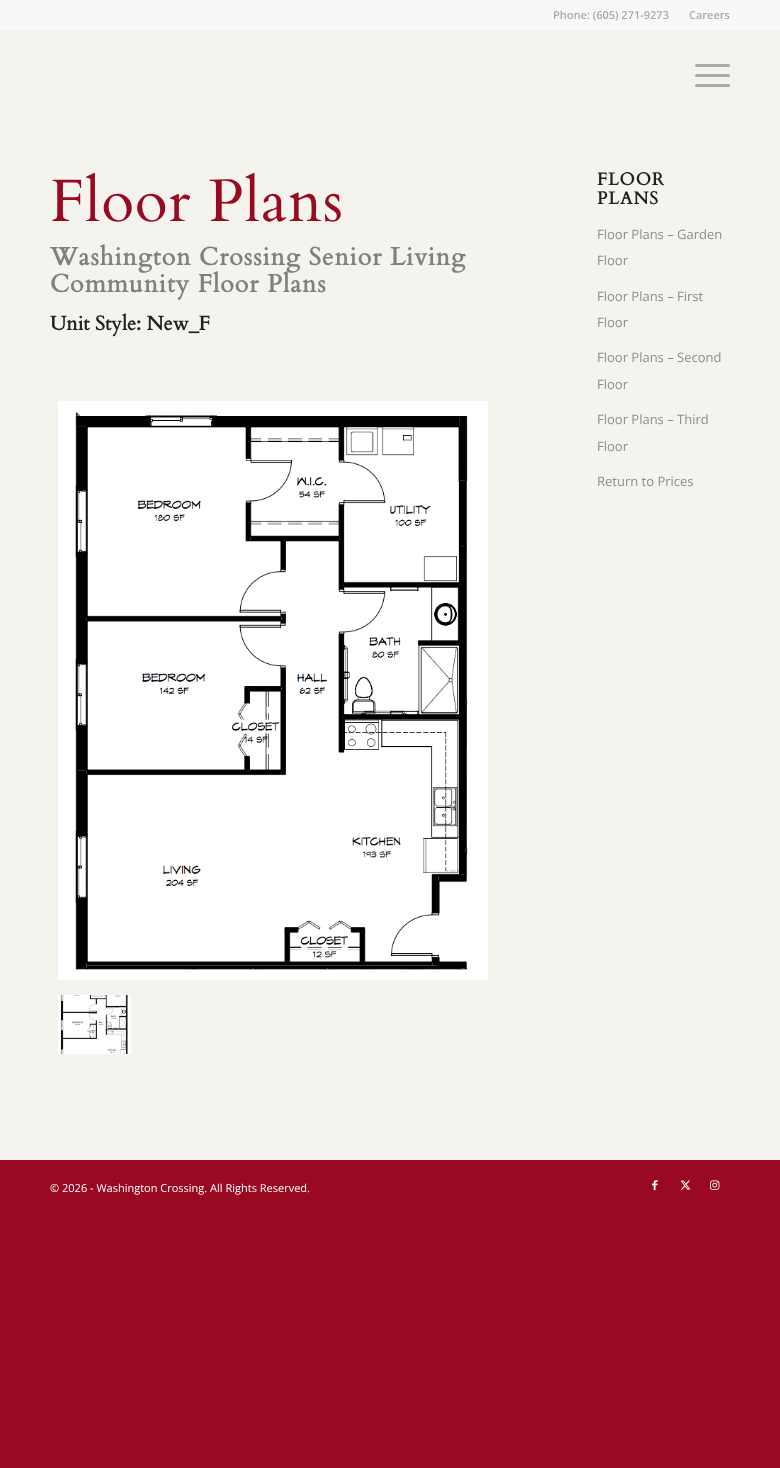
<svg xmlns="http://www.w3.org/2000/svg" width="780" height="1468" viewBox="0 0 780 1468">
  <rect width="100%" height="100%" fill="rgb(153,10,34)"/>
  <rect x="0" y="30" width="780" height="1130" fill="rgb(245,243,238)"/>
  <rect x="0" y="0" width="780" height="30" fill="rgb(248,248,248)"/>
  <g font-family="Open Sans" font-size="11" font-weight="600" fill="rgb(170,170,170)">
    <text x="553" y="19">Phone: (605) 271-9273</text>
    <text x="689" y="19">Careers</text>
  </g>
  <rect x="695" y="74" width="35" height="3" rx="1.5" fill="rgb(170,170,170)"/>
  <rect x="695" y="64" width="35" height="3" rx="1.5" fill="rgb(170,170,170)"/>
  <rect x="695" y="84" width="35" height="3" rx="1.5" fill="rgb(170,170,170)"/>
  <text x="50" y="221" font-family="Cardo" font-size="60" letter-spacing="1" fill="rgb(153,10,34)">Floor Plans</text>
  <g font-family="Cardo" font-size="25" font-weight="bold" letter-spacing="1" fill="rgb(128,128,128)">
    <text>
      <tspan x="50" y="265">Washington Crossing Senior Living</tspan>
      <tspan x="50" y="292">Community Floor Plans</tspan>
    </text>
  </g>
  <text x="50" y="330" font-family="Cardo" font-size="20" font-weight="bold" fill="rgb(34,34,34)">Unit Style: New_F</text>
  <image x="58" y="401" width="430" height="579" href="pic1.png"/>
  <image x="58" y="995" width="73" height="59" href="pic2.png"/>
  <g font-family="Cardo" font-size="17.5" font-weight="bold" letter-spacing="1" fill="rgb(34,34,34)">
    <text>
      <tspan x="597" y="185">FLOOR</tspan>
      <tspan x="597" y="204">PLANS</tspan>
    </text>
  </g>
  <g font-family="Open Sans" font-size="13" fill="rgb(141,141,141)">
    <text x="597" y="239">Floor Plans – Garden</text>
    <text x="597" y="265">Floor</text>
    <text x="597" y="301">Floor Plans – First</text>
    <text x="597" y="327">Floor</text>
    <text x="597" y="362">Floor Plans – Second</text>
    <text x="597" y="389">Floor</text>
    <text x="597" y="424">Floor Plans – Third</text>
    <text x="597" y="451">Floor</text>
    <text x="597" y="486">Return to Prices</text>
  </g>
  <text x="50" y="1192" font-family="Open Sans" font-size="11" fill="rgb(255,255,255)">© 2026 - Washington Crossing. All Rights Reserved.</text>
  <image x="652" y="1180" width="6" height="11" href="pic3.png"/>
  <image x="680" y="1180" width="11" height="10" href="pic4.png"/>
  <image x="710" y="1180" width="10" height="10" href="pic5.png"/>
</svg>
